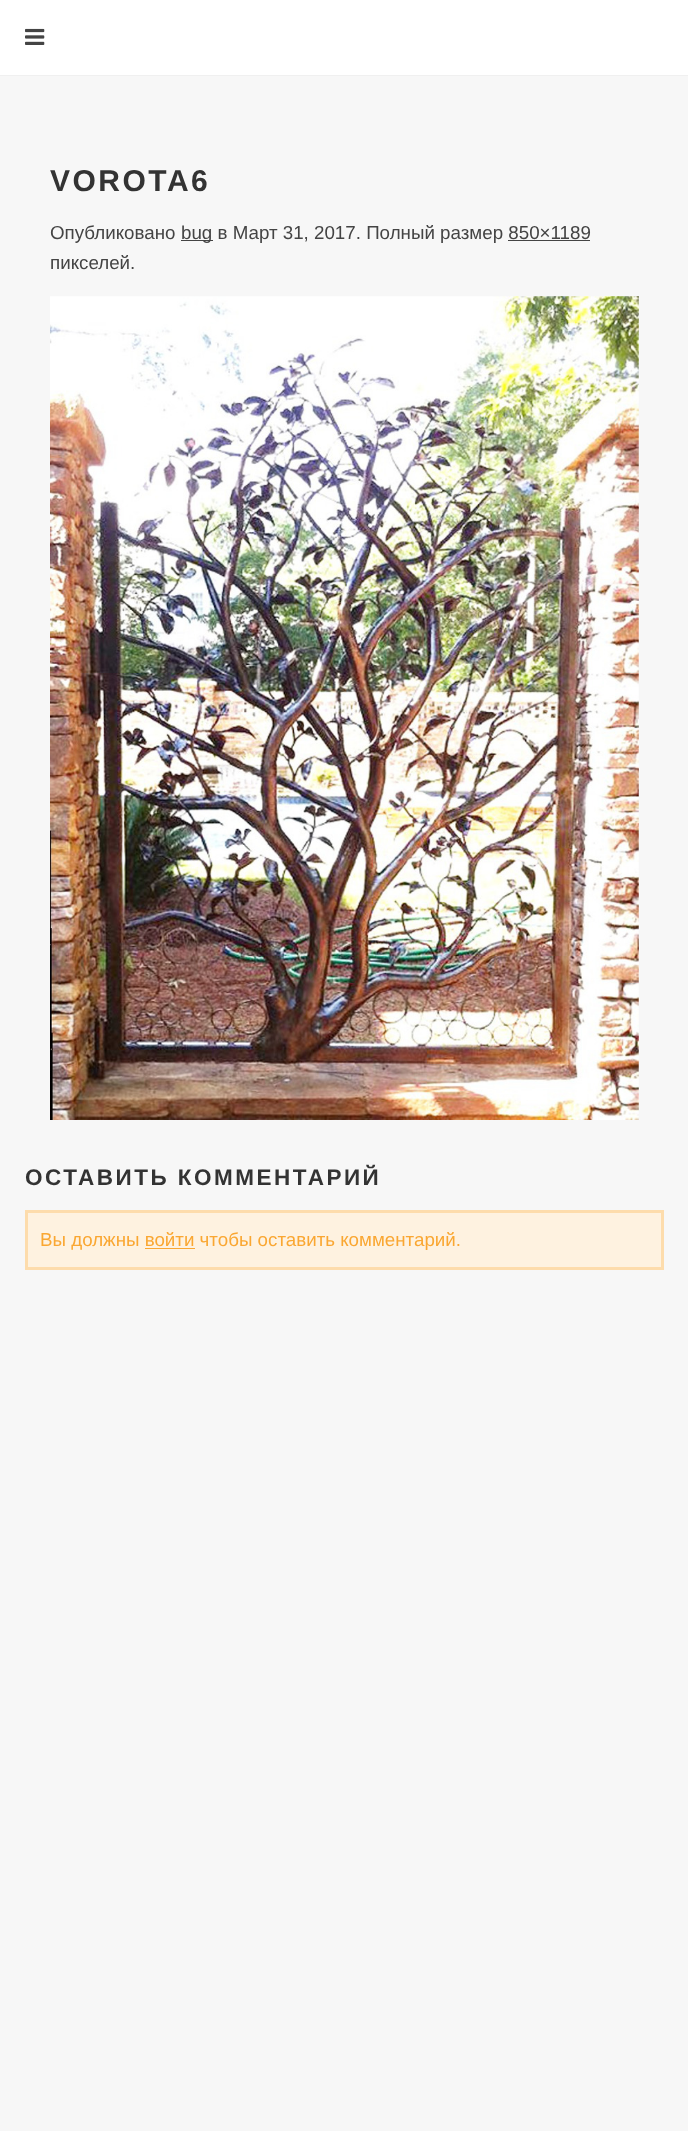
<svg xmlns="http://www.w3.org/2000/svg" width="688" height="2131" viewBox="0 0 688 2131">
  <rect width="100%" height="100%" fill="rgb(247,247,247)"/>
  <rect x="0" y="0" width="688" height="75" fill="rgb(255,255,255)"/>
  <rect x="0" y="75" width="688" height="1" fill="rgb(240,240,240)"/>
  <image x="25" y="28" width="20" height="17" href="pic1.png"/>
  <text x="50" y="191" font-family="Liberation Sans" font-size="30" font-weight="bold" letter-spacing="2.5" fill="rgb(51,51,51)">VOROTA6</text>
  <text x="50" y="239" font-family="Liberation Sans" font-size="18.75" fill="rgb(68,68,68)">Опубликовано</text>
  <rect x="181" y="240" width="32" height="1" fill="rgb(68,68,68)"/>
  <text x="181" y="239" font-family="Liberation Sans" font-size="18.75" fill="rgb(68,68,68)">bug в Март 31, 2017. Полный размер 850×1189</text>
  <rect x="508" y="240" width="82" height="1" fill="rgb(68,68,68)"/>
  <text x="50" y="269" font-family="Liberation Sans" font-size="18.75" fill="rgb(68,68,68)">пикселей.</text>
  <image x="50" y="296" width="589" height="824" href="pic2.png"/>
  <text x="25" y="1185" font-family="Liberation Sans" font-size="22.5" font-weight="bold" letter-spacing="2.5" fill="rgb(51,51,51)">ОСТАВИТЬ КОММЕНТАРИЙ</text>
  <rect x="26.5" y="1211.5" width="636" height="57" fill="rgb(254,242,224)" stroke="rgb(253,220,172)" stroke-width="3"/>
  <text x="40" y="1246" font-family="Liberation Sans" font-size="18.75" fill="rgb(250,167,50)">Вы должны войти чтобы оставить комментарий.</text>
  <rect x="145" y="1248" width="50" height="1" fill="rgb(250,167,50)"/>
</svg>
